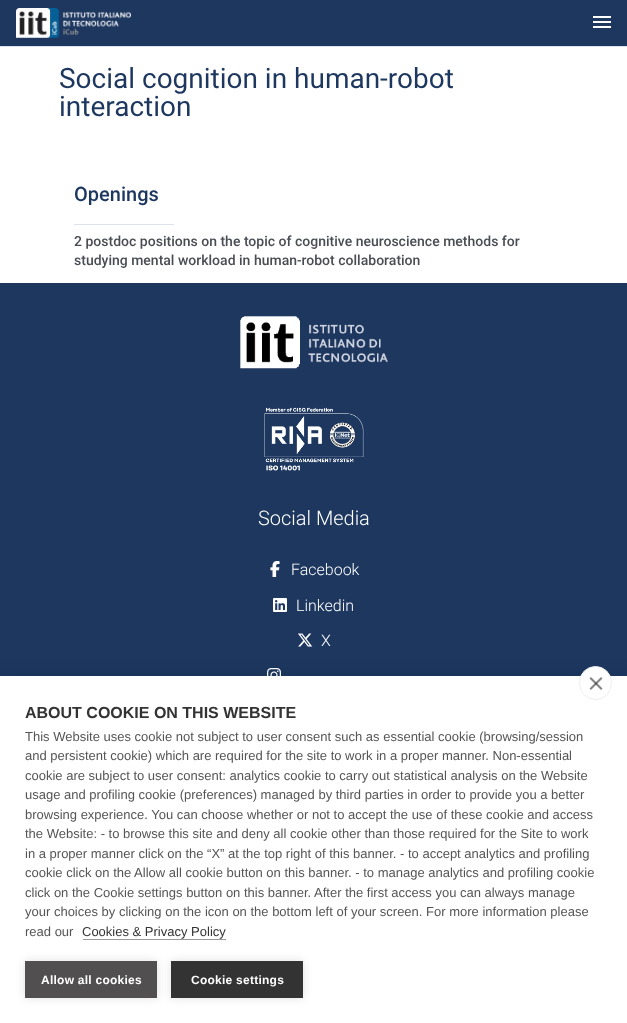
<svg xmlns="http://www.w3.org/2000/svg" width="627" height="1023" viewBox="0 0 627 1023">
  <rect width="100%" height="100%" fill="rgb(255,255,255)"/>
  <rect x="0" y="0" width="627" height="46" fill="rgb(29,55,95)"/>
  <rect x="0" y="46" width="627" height="1" fill="rgb(222,226,239)"/>
  <image x="16" y="8" width="115" height="30" href="pic1.png"/>
  <image x="593" y="16" width="18" height="12" href="pic2.png"/>
  <g font-family="Roboto" font-size="28" fill="rgb(29,55,95)">
    <text>
      <tspan x="59" y="88">Social cognition in human-robot</tspan>
      <tspan x="59" y="116">interaction</tspan>
    </text>
  </g>
  <text x="74" y="201" font-family="Roboto" font-size="20" font-weight="500" fill="rgb(29,55,95)">Openings</text>
  <rect x="74" y="224" width="100" height="1" fill="rgb(222,226,239)"/>
  <g font-family="Roboto" font-size="14" font-weight="500" fill="rgb(74,76,83)">
    <text>
      <tspan x="74" y="246">2 postdoc positions on the topic of cognitive neuroscience methods for</tspan>
      <tspan x="74" y="265">studying mental workload in human-robot collaboration</tspan>
    </text>
  </g>
  <rect x="0" y="283" width="627" height="393" fill="rgb(29,55,95)"/>
  <image x="240" y="316" width="148" height="53" href="pic3.png"/>
  <image x="264" y="407" width="100" height="64" href="pic4.png"/>
  <text x="258" y="525" font-family="Roboto" font-size="20" font-weight="300" fill="rgb(255,255,255)">Social Media</text>
  <image x="270" y="561" width="10" height="16" href="pic5.png"/>
  <text x="291" y="575" font-family="Roboto" font-size="16" font-weight="300" fill="rgb(255,255,255)">Facebook</text>
  <image x="273" y="598" width="14" height="14" href="pic6.png"/>
  <text x="296" y="611" font-family="Roboto" font-size="16" font-weight="300" fill="rgb(255,255,255)">Linkedin</text>
  <image x="298" y="633" width="15" height="14" href="pic7.png"/>
  <text x="321" y="646" font-family="Roboto" font-size="16" font-weight="300" fill="rgb(255,255,255)">X</text>
  <image x="267" y="668" width="14" height="8" href="pic8.png"/>
  <rect x="0" y="676" width="627" height="347" fill="rgba(0,0,0,0.1)" filter="blur(10px)"/>
  <rect x="0" y="676" width="627" height="347" fill="rgb(255,255,255)"/>
  <rect x="579.5" y="666.5" width="32" height="33" rx="16" fill="rgb(255,255,255)" stroke="rgb(238,238,238)"/>
  <path d="M589.5 688.5L601 677L602.5 678.5L591 690Z" fill="rgb(133,133,133)"/>
  <path d="M591 677L602.5 688.5L601 690L589.5 678.5Z" fill="rgba(51,51,51,0.6)"/>
  <text x="25" y="718" font-family="Liberation Sans" font-size="16" font-weight="bold" fill="rgb(51,51,51)">ABOUT COOKIE ON THIS WEBSITE</text>
  <g font-family="Liberation Sans" font-size="13" fill="rgb(85,85,85)">
    <text>
      <tspan x="25" y="741">This Website uses cookie not subject to user consent such as essential cookie (browsing/session</tspan>
      <tspan x="25" y="760">and persistent cookie) which are required for the site to work in a proper manner. Non-essential</tspan>
      <tspan x="25" y="780">cookie are subject to user consent: analytics cookie to carry out statistical analysis on the Website</tspan>
      <tspan x="25" y="799">usage and profiling cookie (preferences) managed by third parties in order to provide you a better</tspan>
      <tspan x="25" y="819">browsing experience. You can choose whether or not to accept the use of these cookie and access</tspan>
      <tspan x="25" y="838">the Website: - to browse this site and deny all cookie other than those required for the Site to work</tspan>
      <tspan x="25" y="858">in a proper manner click on the “X” at the top right of this banner. - to accept analytics and profiling</tspan>
      <tspan x="25" y="877">cookie click on the Allow all cookie button on this banner. - to manage analytics and profiling cookie</tspan>
      <tspan x="25" y="897">click on the Cookie settings button on this banner. After the first access you can always manage</tspan>
      <tspan x="25" y="916">your choices by clicking on the icon on the bottom left of your screen. For more information please</tspan>
      <tspan x="25" y="936">read our</tspan>
    </text>
  </g>
  <text x="82" y="936" font-family="Liberation Sans" font-size="13" fill="rgb(51,51,51)">Cookies &amp; Privacy Policy</text>
  <rect x="83" y="939" width="143" height="1" fill="rgb(153,153,153)"/>
  <rect x="25" y="961" width="132" height="37" fill="rgba(0,0,0,0.12)" filter="blur(5px)"/>
  <rect x="25" y="961" width="132" height="37" fill="rgb(82,79,80)"/>
  <text x="41" y="984" font-family="Liberation Sans" font-size="12" font-weight="bold" letter-spacing="0.25" fill="rgb(255,255,255)">Allow all cookies</text>
  <rect x="171" y="961" width="132" height="37" fill="rgba(0,0,0,0.12)" filter="blur(5px)"/>
  <rect x="171" y="961" width="132" height="37" fill="rgb(51,51,51)"/>
  <text x="191" y="984" font-family="Liberation Sans" font-size="12" font-weight="bold" letter-spacing="0.25" fill="rgb(255,255,255)">Cookie settings</text>
</svg>
